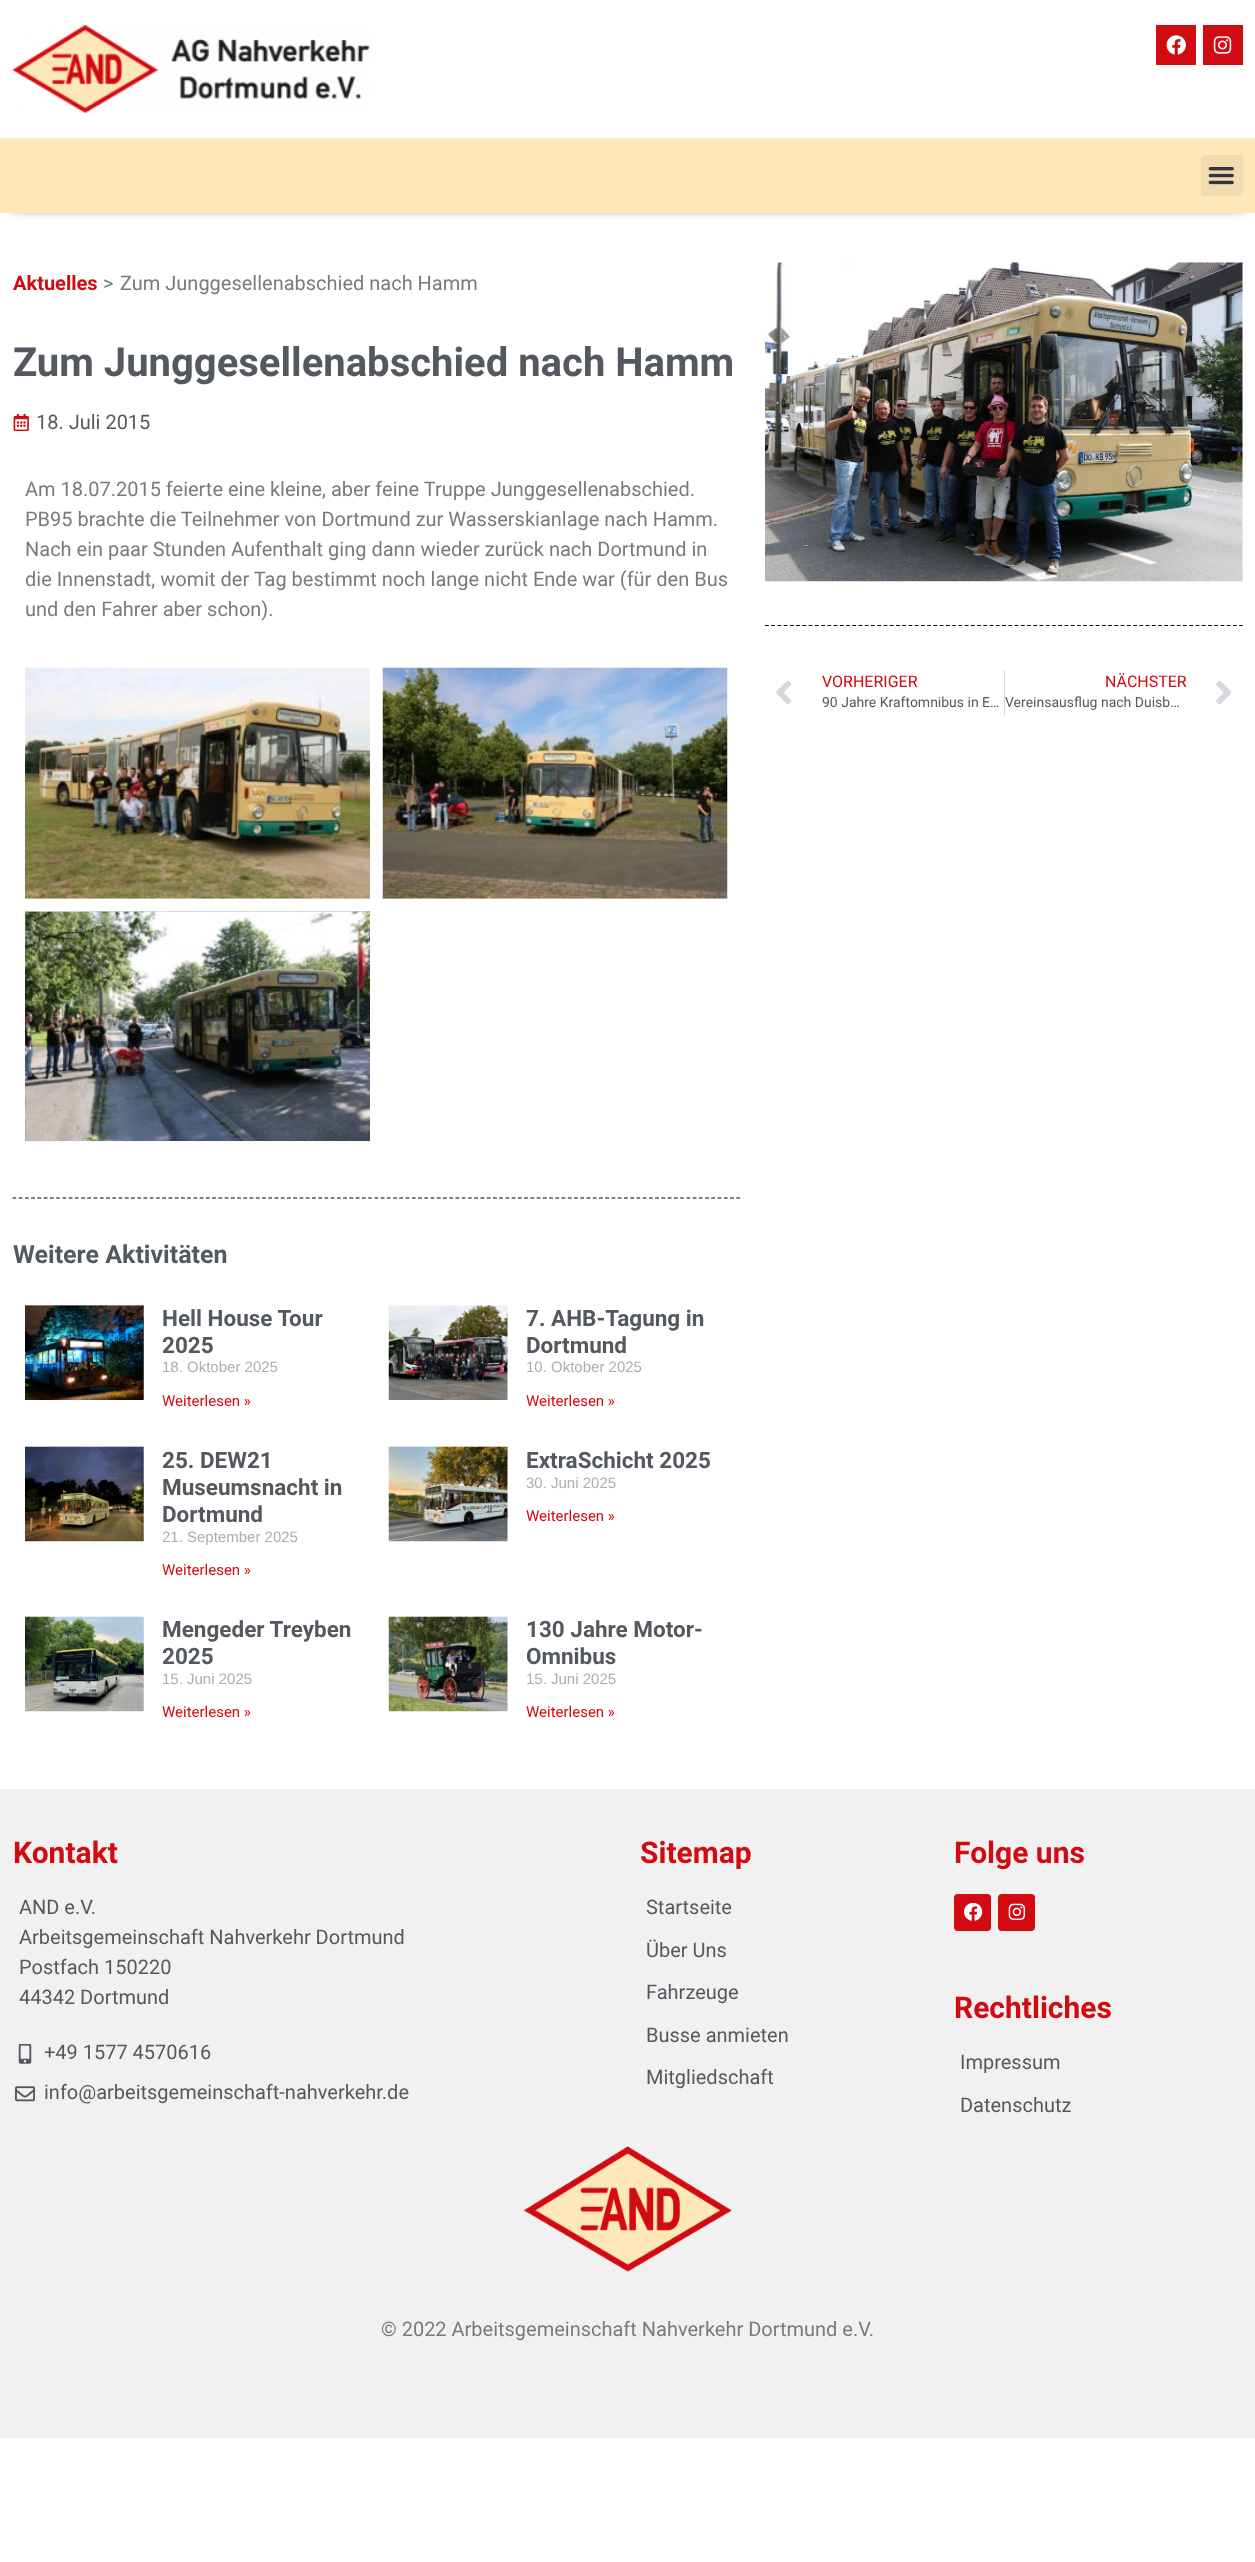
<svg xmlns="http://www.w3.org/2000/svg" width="1255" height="2562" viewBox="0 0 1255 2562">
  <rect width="100%" height="100%" fill="rgb(255,255,255)"/>
  <image x="12" y="25" width="359" height="88" href="pic1.png"/>
  <rect x="1156" y="25" width="40" height="40" fill="rgb(210,10,17)"/>
  <image x="1166" y="35" width="20" height="20" href="pic2.png"/>
  <rect x="1203" y="25" width="40" height="40" fill="rgb(210,10,17)"/>
  <image x="1213" y="36" width="19" height="18" href="pic3.png"/>
  <rect x="13" y="159" width="1230" height="50" fill="rgba(0,0,0,0.5)" filter="blur(6px)"/>
  <rect x="0" y="138" width="1255" height="75" fill="rgb(255,232,184)"/>
  <rect x="1201" y="155" width="42" height="41" rx="4" fill="rgb(242,220,175)"/>
  <image x="1208" y="167" width="26" height="18" href="pic4.png"/>
  <text x="13" y="290" font-family="Roboto" font-size="20" font-weight="bold" fill="rgb(210,10,17)">Aktuelles</text>
  <g font-family="Roboto" font-size="20" fill="rgb(122,122,122)">
    <text x="103" y="290">&gt;</text>
    <text x="120" y="290">Zum Junggesellenabschied nach Hamm</text>
  </g>
  <text x="13" y="376" font-family="Roboto" font-size="40" font-weight="bold" fill="rgb(84,89,95)">Zum Junggesellenabschied nach Hamm</text>
  <image x="13" y="414" width="16" height="17" href="pic5.png"/>
  <text x="36" y="429" font-family="Roboto" font-size="20" fill="rgb(84,89,95)">18. Juli 2015</text>
  <g font-family="Roboto" font-size="20" fill="rgb(122,122,122)">
    <text>
      <tspan x="25" y="496">Am 18.07.2015 feierte eine kleine, aber feine Truppe Junggesellenabschied.</tspan>
      <tspan x="25" y="526">PB95 brachte die Teilnehmer von Dortmund zur Wasserskianlage nach Hamm.</tspan>
      <tspan x="25" y="556">Nach ein paar Stunden Aufenthalt ging dann wieder zurück nach Dortmund in</tspan>
      <tspan x="25" y="586">die Innenstadt, womit der Tag bestimmt noch lange nicht Ende war (für den Bus</tspan>
      <tspan x="25" y="616">und den Fahrer aber schon).</tspan>
    </text>
  </g>
  <image x="25" y="667" width="345" height="232" href="pic6.png"/>
  <image x="382" y="667" width="346" height="232" href="pic7.png"/>
  <image x="25" y="911" width="345" height="231" href="pic8.png"/>
  <path d="M12.5 1198H740" fill="none" stroke="rgb(0,0,0)" stroke-width="1.2" stroke-dasharray="3.75 2.49"/>
  <text x="13" y="1263" font-family="Roboto" font-size="25" font-weight="bold" fill="rgb(84,89,95)">Weitere Aktivitäten</text>
  <image x="25" y="1305" width="119" height="95" href="pic9.png"/>
  <g font-family="Roboto" font-size="22.5" font-weight="bold" fill="rgb(84,89,95)">
    <text>
      <tspan x="162" y="1326">Hell House Tour</tspan>
      <tspan x="162" y="1353">2025</tspan>
    </text>
  </g>
  <text x="162" y="1372" font-family="Liberation Sans" font-size="15" fill="rgb(173,173,173)">18. Oktober 2025</text>
  <text x="162" y="1406" font-family="Roboto" font-size="15" fill="rgb(210,10,17)">Weiterlesen »</text>
  <image x="388" y="1305" width="120" height="95" href="pic10.png"/>
  <g font-family="Roboto" font-size="22.5" font-weight="bold" fill="rgb(84,89,95)">
    <text>
      <tspan x="526" y="1326">7. AHB-Tagung in</tspan>
      <tspan x="526" y="1353">Dortmund</tspan>
    </text>
  </g>
  <text x="526" y="1372" font-family="Liberation Sans" font-size="15" fill="rgb(173,173,173)">10. Oktober 2025</text>
  <text x="526" y="1406" font-family="Roboto" font-size="15" fill="rgb(210,10,17)">Weiterlesen »</text>
  <image x="25" y="1446" width="119" height="96" href="pic11.png"/>
  <g font-family="Roboto" font-size="22.5" font-weight="bold" fill="rgb(84,89,95)">
    <text>
      <tspan x="162" y="1468">25. DEW21</tspan>
      <tspan x="162" y="1495">Museumsnacht in</tspan>
      <tspan x="162" y="1522">Dortmund</tspan>
    </text>
  </g>
  <text x="162" y="1542" font-family="Liberation Sans" font-size="15" fill="rgb(173,173,173)">21. September 2025</text>
  <text x="162" y="1575" font-family="Roboto" font-size="15" fill="rgb(210,10,17)">Weiterlesen »</text>
  <image x="388" y="1446" width="120" height="96" href="pic12.png"/>
  <text x="526" y="1468" font-family="Roboto" font-size="22.5" font-weight="bold" fill="rgb(84,89,95)">ExtraSchicht 2025</text>
  <text x="526" y="1488" font-family="Liberation Sans" font-size="15" fill="rgb(173,173,173)">30. Juni 2025</text>
  <text x="526" y="1521" font-family="Roboto" font-size="15" fill="rgb(210,10,17)">Weiterlesen »</text>
  <image x="25" y="1616" width="119" height="96" href="pic13.png"/>
  <g font-family="Roboto" font-size="22.5" font-weight="bold" fill="rgb(84,89,95)">
    <text>
      <tspan x="162" y="1637">Mengeder Treyben</tspan>
      <tspan x="162" y="1664">2025</tspan>
    </text>
  </g>
  <text x="162" y="1684" font-family="Liberation Sans" font-size="15" fill="rgb(173,173,173)">15. Juni 2025</text>
  <text x="162" y="1717" font-family="Roboto" font-size="15" fill="rgb(210,10,17)">Weiterlesen »</text>
  <image x="388" y="1616" width="120" height="96" href="pic14.png"/>
  <g font-family="Roboto" font-size="22.5" font-weight="bold" fill="rgb(84,89,95)">
    <text>
      <tspan x="526" y="1637">130 Jahre Motor-</tspan>
      <tspan x="526" y="1664">Omnibus</tspan>
    </text>
  </g>
  <text x="526" y="1684" font-family="Liberation Sans" font-size="15" fill="rgb(173,173,173)">15. Juni 2025</text>
  <text x="526" y="1717" font-family="Roboto" font-size="15" fill="rgb(210,10,17)">Weiterlesen »</text>
  <image x="765" y="262" width="478" height="320" href="pic15.png"/>
  <path d="M765 625.5H1242.5" fill="none" stroke="rgb(0,0,0)" stroke-width="1.2" stroke-dasharray="3.75 2.49"/>
  <image x="776" y="680" width="16" height="25" href="pic16.png"/>
  <text x="822" y="687" font-family="Roboto" font-size="16" fill="rgb(210,10,17)">VORHERIGER</text>
  <text x="822" y="707" font-family="Roboto" font-size="14" fill="rgb(84,89,95)">90 Jahre Kraftomnibus in E…</text>
  <rect x="1004" y="670" width="1" height="45" fill="rgb(213,216,220)"/>
  <text x="1105" y="687" font-family="Roboto" font-size="16" fill="rgb(210,10,17)">NÄCHSTER</text>
  <text x="1005" y="707" font-family="Roboto" font-size="14" fill="rgb(84,89,95)">Vereinsausflug nach Duisb…</text>
  <image x="1216" y="680" width="16" height="25" href="pic17.png"/>
  <rect x="0" y="1789" width="1255" height="649" fill="rgb(241,241,241)"/>
  <text x="13" y="1863" font-family="Roboto" font-size="30" font-weight="bold" fill="rgb(210,10,17)">Kontakt</text>
  <g font-family="Roboto" font-size="20" fill="rgb(84,89,95)">
    <text>
      <tspan x="19" y="1914">AND e.V.</tspan>
      <tspan x="19" y="1944">Arbeitsgemeinschaft Nahverkehr Dortmund</tspan>
      <tspan x="19" y="1974">Postfach 150220</tspan>
      <tspan x="19" y="2004">44342 Dortmund</tspan>
    </text>
  </g>
  <image x="18" y="2044" width="14" height="20" href="pic18.png"/>
  <text x="44" y="2059" font-family="Roboto" font-size="20" fill="rgb(84,89,95)">+49 1577 4570616</text>
  <image x="15" y="2086" width="20" height="16" href="pic19.png"/>
  <text x="44" y="2099" font-family="Roboto" font-size="20" fill="rgb(84,89,95)">info@arbeitsgemeinschaft-nahverkehr.de</text>
  <text x="640" y="1863" font-family="Roboto" font-size="30" font-weight="bold" fill="rgb(210,10,17)">Sitemap</text>
  <g font-family="Roboto" font-size="20" fill="rgb(84,89,95)">
    <text x="646" y="1914">Startseite</text>
    <text x="646" y="1957">Über Uns</text>
    <text x="646" y="1999">Fahrzeuge</text>
    <text x="646" y="2042">Busse anmieten</text>
    <text x="646" y="2084">Mitgliedschaft</text>
  </g>
  <text x="954" y="1863" font-family="Roboto" font-size="30" font-weight="bold" fill="rgb(210,10,17)">Folge uns</text>
  <rect x="954" y="1894" width="37" height="37" rx="4" fill="rgb(210,10,17)"/>
  <image x="964" y="1903" width="19" height="18" href="pic20.png"/>
  <rect x="998" y="1894" width="37" height="37" rx="4" fill="rgb(210,10,17)"/>
  <image x="1008" y="1903" width="18" height="17" href="pic21.png"/>
  <text x="954" y="2018" font-family="Roboto" font-size="30" font-weight="bold" fill="rgb(210,10,17)">Rechtliches</text>
  <g font-family="Roboto" font-size="20" fill="rgb(84,89,95)">
    <text x="960" y="2069">Impressum</text>
    <text x="960" y="2112">Datenschutz</text>
  </g>
  <image x="523" y="2146" width="209" height="126" href="pic22.png"/>
  <text x="381" y="2336" font-family="Roboto" font-size="20" fill="rgb(122,122,122)">© 2022 Arbeitsgemeinschaft Nahverkehr Dortmund e.V.</text>
</svg>
